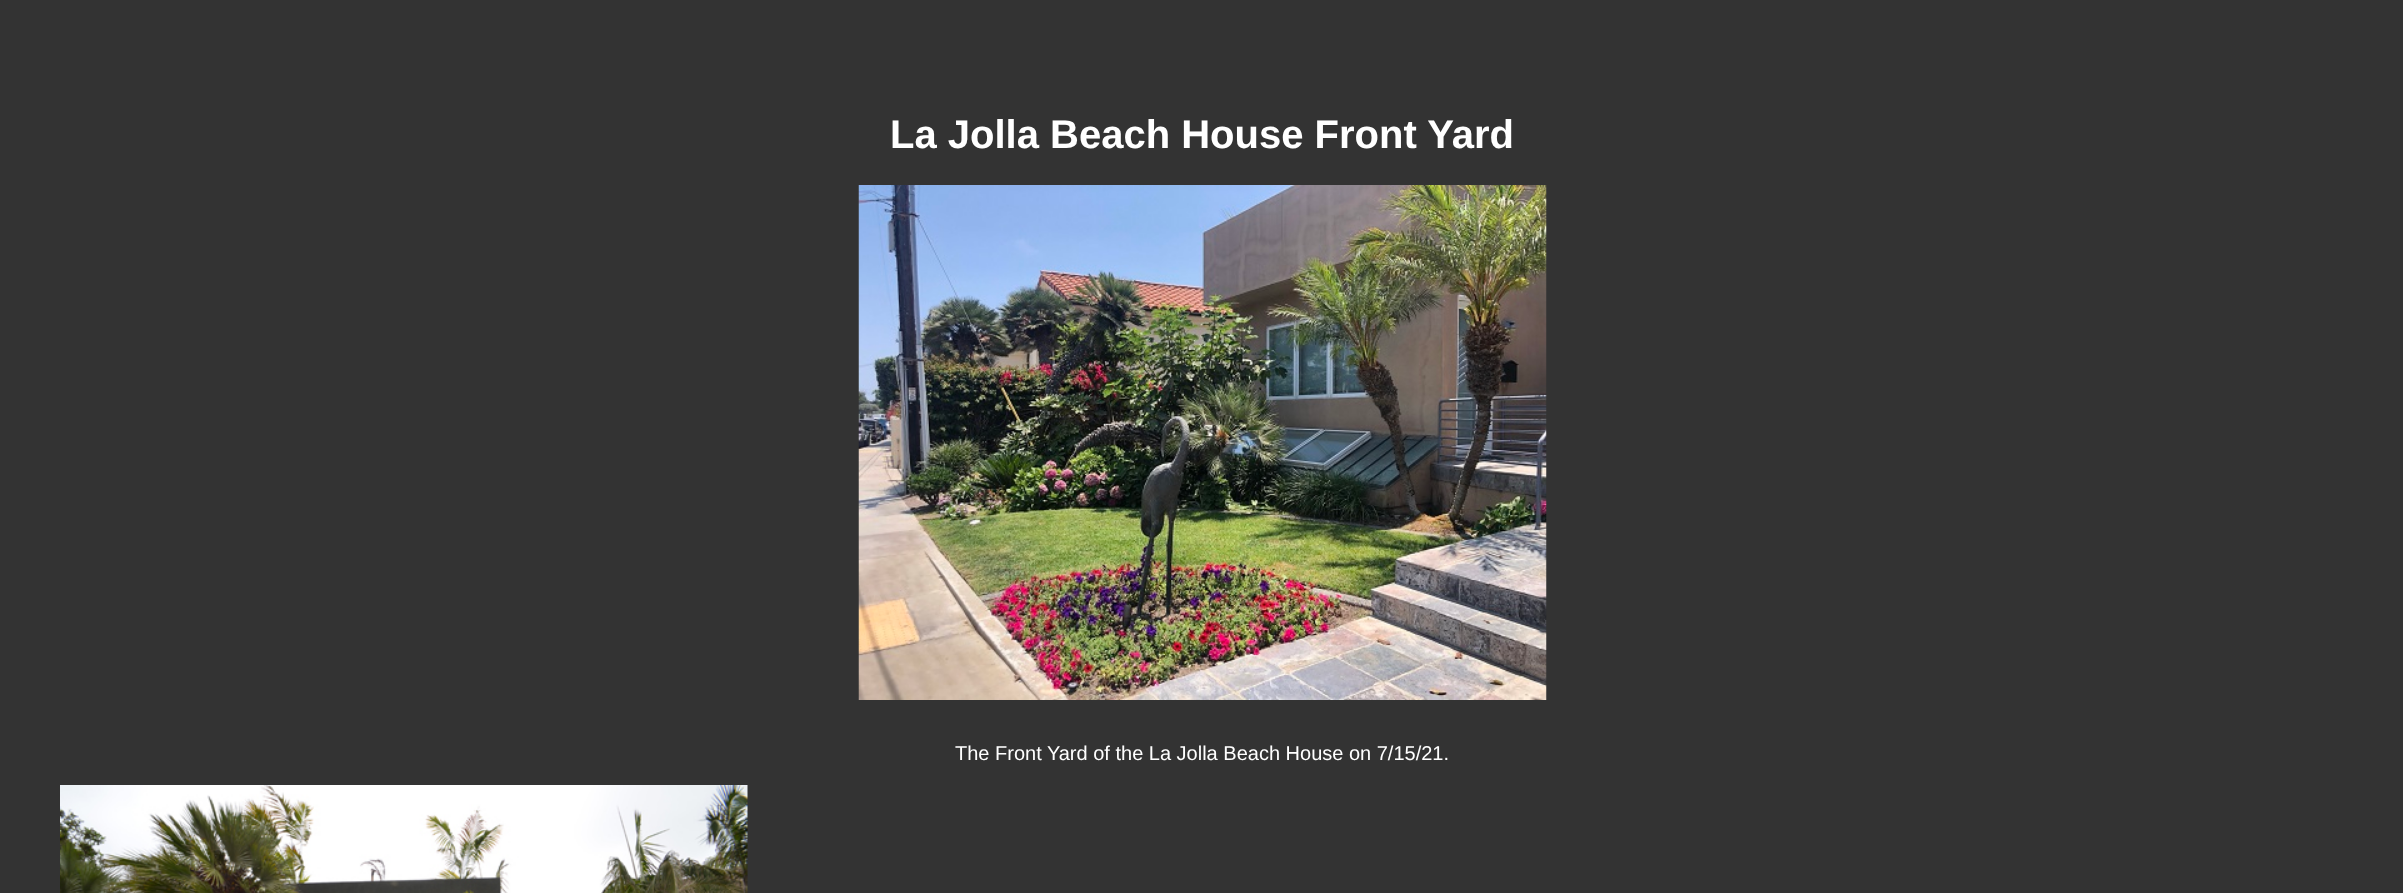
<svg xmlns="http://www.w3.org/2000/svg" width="2403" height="893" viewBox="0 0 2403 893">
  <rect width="100%" height="100%" fill="rgb(51,51,51)"/>
  <text x="890" y="148" font-family="Liberation Sans" font-size="40" font-weight="bold" fill="rgb(255,255,255)">La Jolla Beach House Front Yard</text>
  <image x="858" y="185" width="689" height="515" href="pic1.png"/>
  <text x="955" y="760" font-family="Liberation Sans" font-size="20" fill="rgb(255,255,255)">The Front Yard of the La Jolla Beach House on 7/15/21.</text>
  <image x="60" y="785" width="688" height="108" href="pic2.png"/>
</svg>
